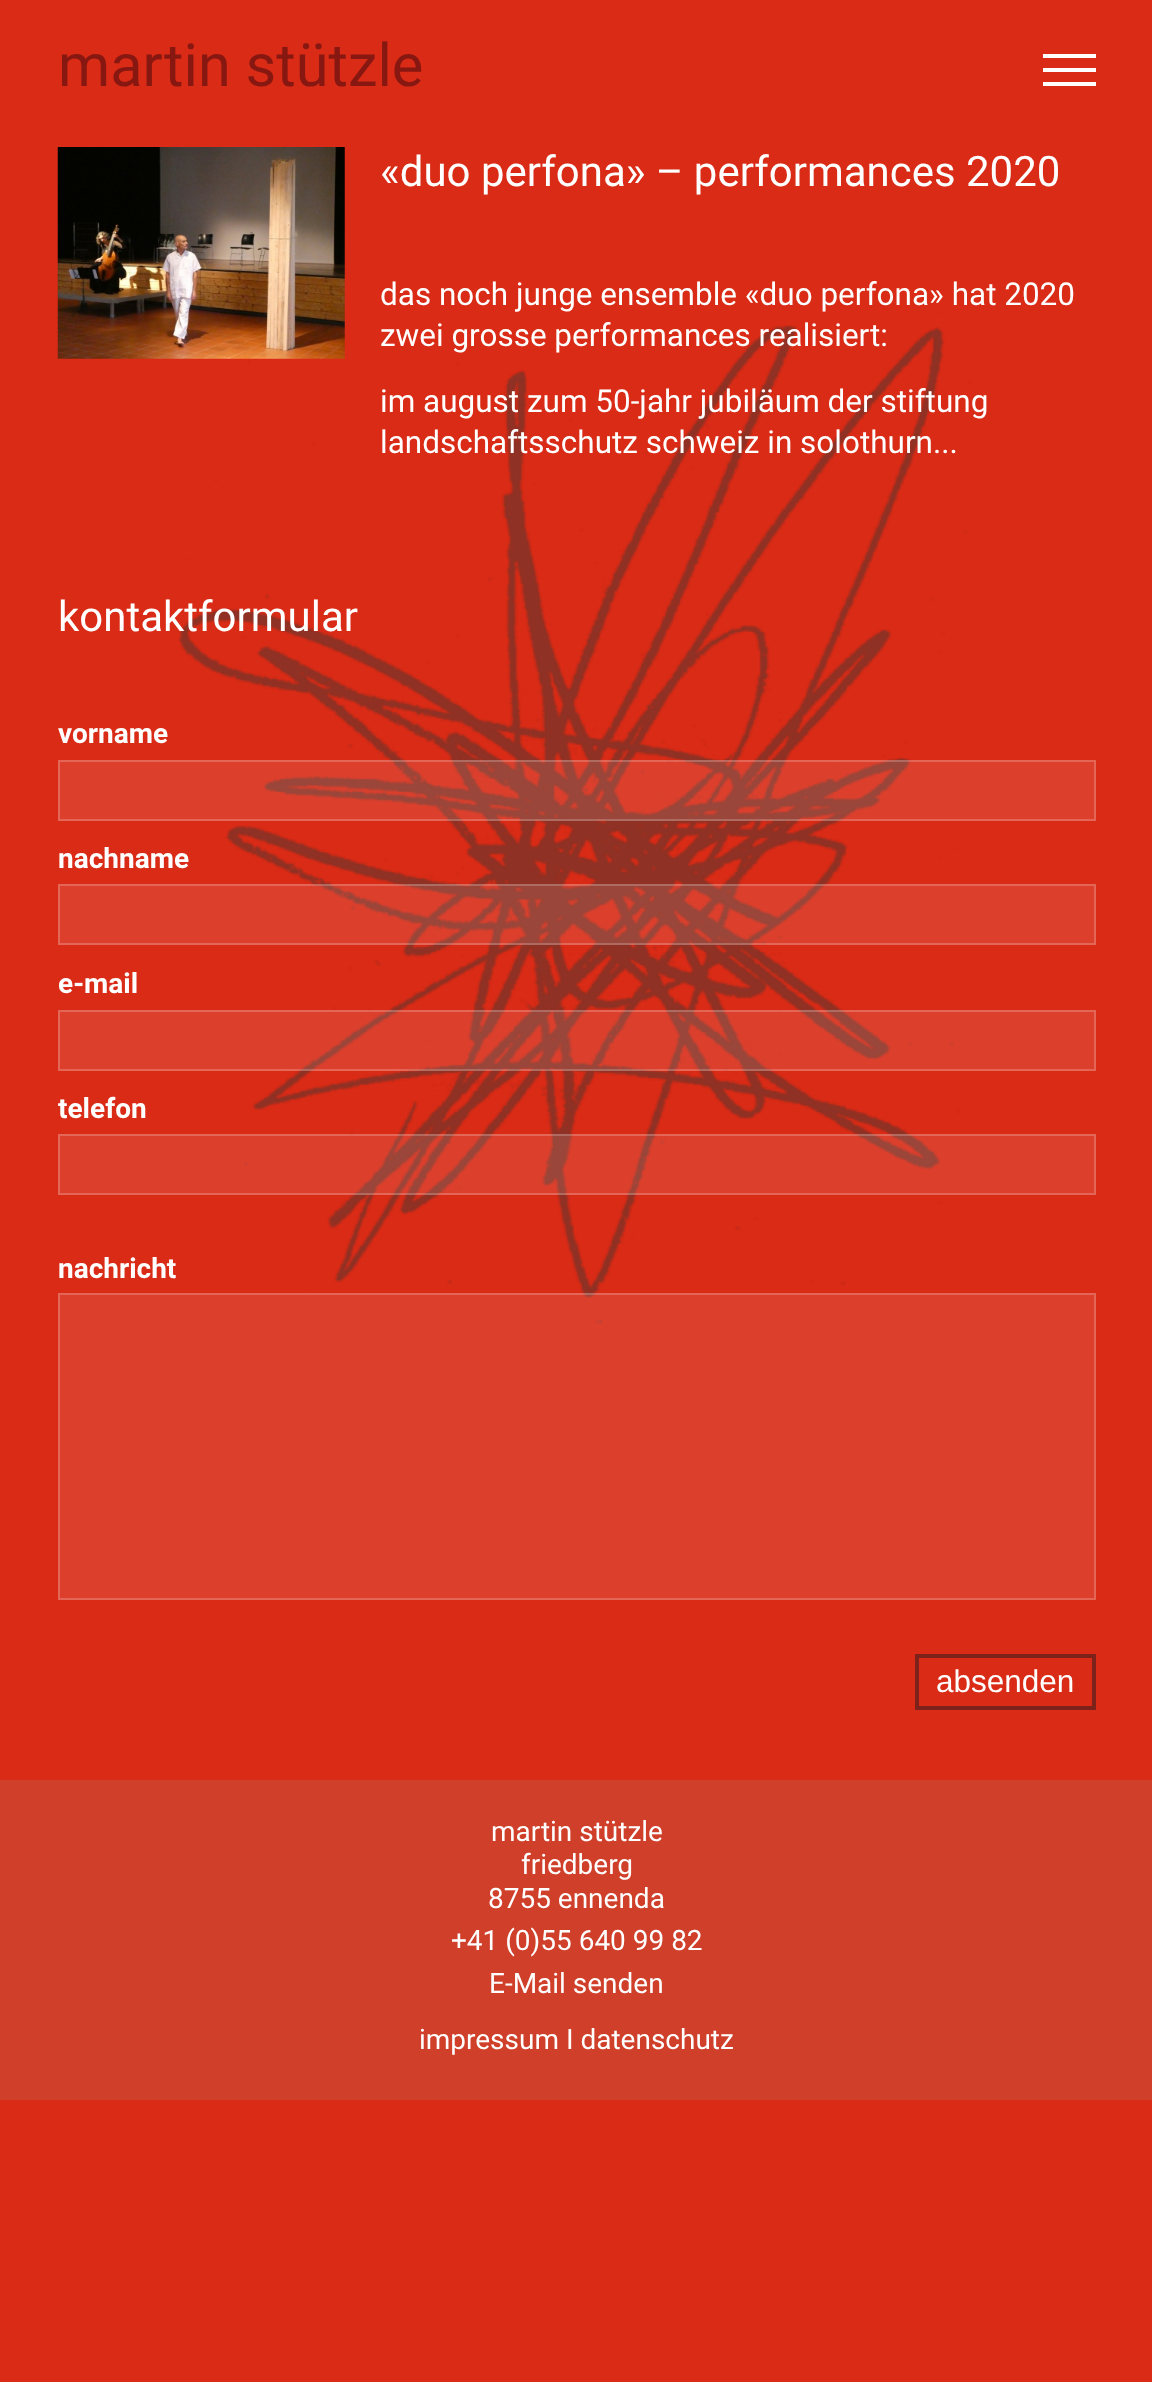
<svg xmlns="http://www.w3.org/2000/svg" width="1152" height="2382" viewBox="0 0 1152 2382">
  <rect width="100%" height="100%" fill="rgb(217,43,22)"/>
  <text x="58" y="86" font-family="Roboto" font-size="59.5" fill="rgb(135,24,17)">martin stützle</text>
  <rect x="1043" y="54" width="53" height="4" fill="rgb(255,255,255)"/>
  <rect x="1043" y="68" width="53" height="4" fill="rgb(255,255,255)"/>
  <rect x="1043" y="82" width="53" height="4" fill="rgb(255,255,255)"/>
  <image x="178" y="289" width="793" height="1035" href="pic2.png"/>
  <image x="57" y="147" width="288" height="212" href="pic1.png"/>
  <text x="380" y="186" font-family="Roboto" font-size="42" fill="rgb(255,255,255)">«duo perfona» – performances 2020</text>
  <g font-family="Roboto" font-size="31.5" fill="rgb(255,255,255)">
    <text>
      <tspan x="380" y="305">das noch junge ensemble «duo perfona» hat 2020</tspan>
      <tspan x="380" y="346">zwei grosse performances realisiert:</tspan>
    </text>
    <text>
      <tspan x="380" y="412">im august zum 50-jahr jubiläum der stiftung</tspan>
      <tspan x="380" y="453">landschaftsschutz schweiz in solothurn...</tspan>
    </text>
  </g>
  <text x="58" y="631" font-family="Roboto" font-size="42" fill="rgb(255,255,255)">kontaktformular</text>
  <text x="58" y="743" font-family="Roboto" font-size="28" font-weight="bold" fill="rgb(255,255,255)">vorname</text>
  <rect x="58" y="760" width="1038" height="61" fill="rgba(255,255,255,0.1)"/>
  <rect x="59" y="761" width="1036" height="59" fill="none" stroke="rgba(255,255,255,0.2)" stroke-width="2"/>
  <text x="58" y="868" font-family="Roboto" font-size="28" font-weight="bold" fill="rgb(255,255,255)">nachname</text>
  <rect x="58" y="884" width="1038" height="61" fill="rgba(255,255,255,0.1)"/>
  <rect x="59" y="885" width="1036" height="59" fill="none" stroke="rgba(255,255,255,0.2)" stroke-width="2"/>
  <text x="58" y="993" font-family="Roboto" font-size="28" font-weight="bold" fill="rgb(255,255,255)">e-mail</text>
  <rect x="58" y="1010" width="1038" height="61" fill="rgba(255,255,255,0.1)"/>
  <rect x="59" y="1011" width="1036" height="59" fill="none" stroke="rgba(255,255,255,0.2)" stroke-width="2"/>
  <text x="58" y="1118" font-family="Roboto" font-size="28" font-weight="bold" fill="rgb(255,255,255)">telefon</text>
  <rect x="58" y="1134" width="1038" height="61" fill="rgba(255,255,255,0.1)"/>
  <rect x="59" y="1135" width="1036" height="59" fill="none" stroke="rgba(255,255,255,0.2)" stroke-width="2"/>
  <text x="58" y="1278" font-family="Roboto" font-size="28" font-weight="bold" fill="rgb(255,255,255)">nachricht</text>
  <rect x="58" y="1293" width="1038" height="307" fill="rgba(255,255,255,0.1)"/>
  <rect x="59" y="1294" width="1036" height="305" fill="none" stroke="rgba(255,255,255,0.2)" stroke-width="2"/>
  <rect x="917" y="1656" width="177" height="52" fill="none" stroke="rgb(125,33,27)" stroke-width="4"/>
  <text x="936" y="1692" font-family="Liberation Sans" font-size="31.5" fill="rgb(255,255,255)">absenden</text>
  <rect x="0" y="1780" width="1152" height="320" fill="rgb(207,63,41)"/>
  <g font-family="Roboto" font-size="28" fill="rgb(255,255,255)">
    <text x="491" y="1841">martin stützle</text>
    <text x="521" y="1874">friedberg</text>
    <text x="488" y="1908">8755 ennenda</text>
    <text x="451" y="1950">+41 (0)55 640 99 82</text>
    <text x="489" y="1993">E-Mail senden</text>
    <text x="419" y="2049">impressum I datenschutz</text>
  </g>
</svg>
